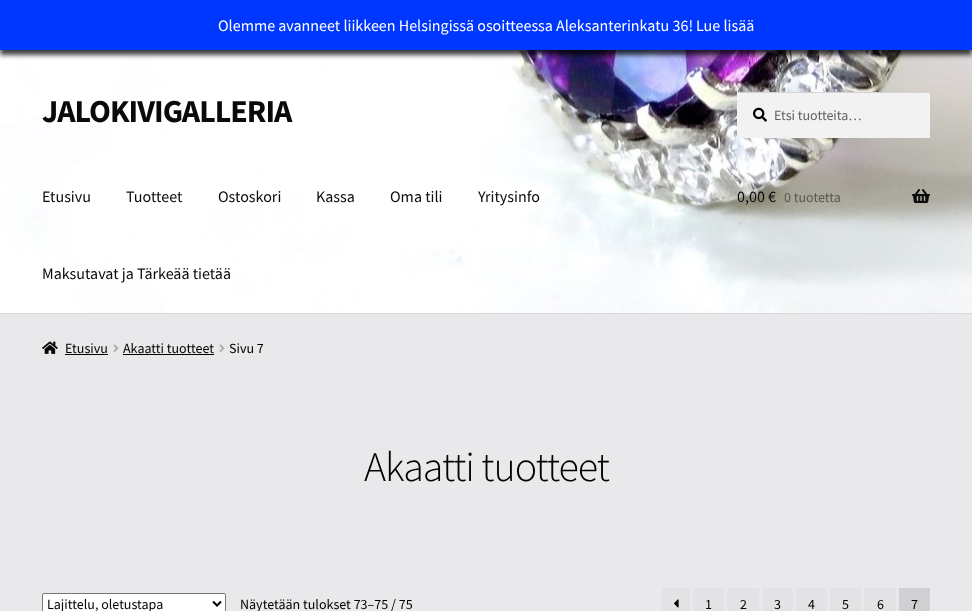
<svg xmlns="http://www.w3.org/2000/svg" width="972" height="611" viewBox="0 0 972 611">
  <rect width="100%" height="100%" fill="rgb(233,233,235)"/>
  <image x="0" y="50" width="972" height="263" href="pic1.png"/>
  <rect x="0" y="5" width="972" height="50" fill="rgba(0,0,0,0.75)" filter="blur(2.5px)"/>
  <rect x="0" y="0" width="972" height="50" fill="rgb(0,55,255)"/>
  <g font-family="Source Sans Pro" font-size="16" fill="rgb(255,255,255)">
    <text x="218" y="31">Olemme avanneet liikkeen Helsingissä osoitteessa Aleksanterinkatu 36!</text>
    <text x="696" y="31">Lue lisää</text>
  </g>
  <rect x="0" y="313" width="972" height="1" fill="rgb(218,218,220)"/>
  <text x="42" y="122" font-family="Source Sans Pro" font-size="32" font-weight="bold" letter-spacing="-1" fill="rgb(10,10,10)">JALOKIVIGALLERIA</text>
  <rect x="737" y="93" width="193" height="45" fill="rgb(242,242,242)"/>
  <image x="753" y="107" width="14" height="15" href="pic2.png"/>
  <rect x="737" y="92" width="193" height="1" fill="rgb(212,212,212)"/>
  <text x="774" y="120" font-family="Source Sans Pro" font-size="14" fill="rgb(97,97,97)">Etsi tuotteita…</text>
  <g font-family="Source Sans Pro" font-size="16" fill="rgb(10,10,10)">
    <text x="42" y="202">Etusivu</text>
    <text x="126" y="202">Tuotteet</text>
    <text x="218" y="202">Ostoskori</text>
    <text x="316" y="202">Kassa</text>
    <text x="390" y="202">Oma tili</text>
    <text x="478" y="202">Yritysinfo</text>
    <text x="42" y="279">Maksutavat ja Tärkeää tietää</text>
    <text x="737" y="202">0,00 €</text>
  </g>
  <text x="784" y="202" font-family="Source Sans Pro" font-size="14" fill="rgb(89,88,82)">0 tuotetta</text>
  <image x="912" y="189" width="18" height="14" href="pic3.png"/>
  <image x="42" y="341" width="16" height="13" href="pic4.png"/>
  <text x="65" y="353" font-family="Source Sans Pro" font-size="14" fill="rgb(0,0,0)">Etusivu</text>
  <rect x="65" y="354" width="43" height="1" fill="rgb(5,5,5)"/>
  <image x="113" y="344" width="6" height="8" href="pic5.png"/>
  <text x="123" y="353" font-family="Source Sans Pro" font-size="14" fill="rgb(0,0,0)">Akaatti tuotteet</text>
  <rect x="123" y="354" width="91" height="1" fill="rgb(5,5,5)"/>
  <image x="219" y="344" width="6" height="8" href="pic5.png"/>
  <text x="229" y="353" font-family="Source Sans Pro" font-size="14" fill="rgb(0,0,0)">Sivu 7</text>
  <text x="364" y="481" font-family="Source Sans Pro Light" font-size="42" font-weight="300" letter-spacing="-1" fill="rgb(0,0,0)">Akaatti tuotteet</text>
  <rect x="42.5" y="593.5" width="183" height="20" rx="1.5" fill="rgb(255,255,255)" stroke="rgb(118,118,118)"/>
  <path d="M213 601.5L217 605.5L221 601.5" fill="none" stroke="rgb(0,0,0)" stroke-width="2"/>
  <g font-family="Source Sans Pro" font-size="14" fill="rgb(0,0,0)">
    <text x="47" y="609">Lajittelu, oletustapa</text>
    <text x="240" y="609">Näytetään tulokset 73–75 / 75</text>
  </g>
  <rect x="662" y="588" width="28" height="23" fill="rgb(227,227,229)"/>
  <image x="674" y="599" width="5" height="9" href="pic6.png"/>
  <rect x="693" y="588" width="31" height="23" fill="rgb(227,227,229)"/>
  <text x="705" y="609" font-family="Source Sans Pro" font-size="14" fill="rgb(0,0,0)">1</text>
  <rect x="727" y="588" width="32" height="23" fill="rgb(227,227,229)"/>
  <text x="740" y="609" font-family="Source Sans Pro" font-size="14" fill="rgb(0,0,0)">2</text>
  <rect x="762" y="588" width="31" height="23" fill="rgb(227,227,229)"/>
  <text x="774" y="609" font-family="Source Sans Pro" font-size="14" fill="rgb(0,0,0)">3</text>
  <rect x="796" y="588" width="31" height="23" fill="rgb(227,227,229)"/>
  <text x="808" y="609" font-family="Source Sans Pro" font-size="14" fill="rgb(0,0,0)">4</text>
  <rect x="830" y="588" width="32" height="23" fill="rgb(227,227,229)"/>
  <text x="842" y="609" font-family="Source Sans Pro" font-size="14" fill="rgb(0,0,0)">5</text>
  <rect x="864" y="588" width="32" height="23" fill="rgb(227,227,229)"/>
  <text x="877" y="609" font-family="Source Sans Pro" font-size="14" fill="rgb(0,0,0)">6</text>
  <rect x="899" y="588" width="31" height="23" fill="rgb(208,208,210)"/>
  <text x="911" y="609" font-family="Source Sans Pro" font-size="14" fill="rgb(0,0,0)">7</text>
</svg>
